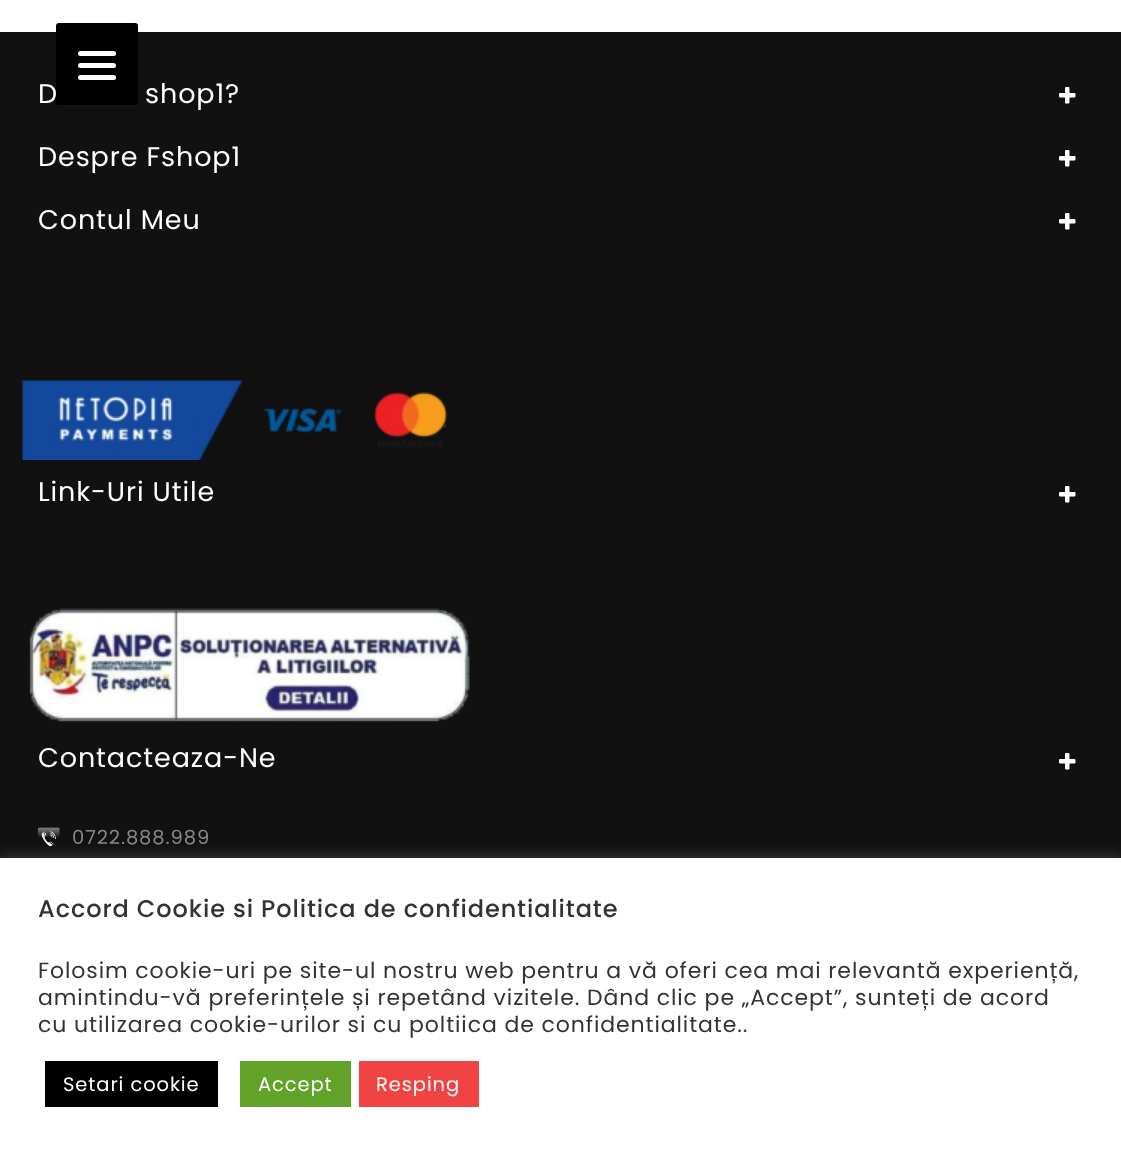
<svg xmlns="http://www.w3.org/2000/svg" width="1121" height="1151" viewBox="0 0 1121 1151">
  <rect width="100%" height="100%" fill="rgb(255,255,255)"/>
  <rect x="0" y="32" width="1121" height="826" fill="rgb(17,17,17)"/>
  <rect x="56" y="23" width="82" height="82" rx="3" fill="rgb(0,0,0)"/>
  <rect x="78" y="63" width="38" height="5" rx="2.5" fill="rgb(255,255,255)"/>
  <rect x="78" y="51" width="38" height="5" rx="2.5" fill="rgb(255,255,255)"/>
  <rect x="78" y="75" width="38" height="5" rx="2.5" fill="rgb(255,255,255)"/>
  <g font-family="Poppins" font-size="27" letter-spacing="0.9" fill="rgb(255,255,255)">
    <text x="38" y="103">D</text>
    <text x="145" y="103">shop1?</text>
  </g>
  <image x="1059" y="87" width="17" height="17" href="pic1.png"/>
  <text x="38" y="166" font-family="Poppins" font-size="27" letter-spacing="0.9" fill="rgb(255,255,255)">Despre Fshop1</text>
  <image x="1059" y="150" width="17" height="17" href="pic1.png"/>
  <text x="38" y="229" font-family="Poppins" font-size="27" letter-spacing="0.9" fill="rgb(255,255,255)">Contul Meu</text>
  <image x="1059" y="213" width="17" height="17" href="pic1.png"/>
  <image x="22" y="380" width="426" height="80" href="pic2.png"/>
  <text x="38" y="501" font-family="Poppins" font-size="27" letter-spacing="0.9" fill="rgb(255,255,255)">Link-Uri Utile</text>
  <image x="1059" y="486" width="17" height="17" href="pic1.png"/>
  <image x="29" y="608" width="441" height="114" href="pic3.png"/>
  <text x="38" y="767" font-family="Poppins" font-size="27" letter-spacing="0.9" fill="rgb(255,255,255)">Contacteaza-Ne</text>
  <image x="1059" y="753" width="17" height="17" href="pic1.png"/>
  <image x="37" y="827" width="23" height="20" href="pic4.png"/>
  <text x="72" y="844" font-family="Poppins" font-size="19.5" letter-spacing="0.9" fill="rgb(136,136,136)">0722.888.989</text>
  <rect x="0" y="857" width="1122" height="294" fill="rgba(172,171,171,0.3)" filter="blur(7.5px)"/>
  <rect x="0" y="858" width="1121" height="293" fill="rgb(255,255,255)"/>
  <text x="38" y="917" font-family="Poppins" font-size="24" font-weight="500" letter-spacing="0.9" fill="rgb(51,51,51)">Accord Cookie si Politica de confidentialitate</text>
  <g font-family="Poppins" font-size="22" letter-spacing="0.9" fill="rgb(51,51,51)">
    <text>
      <tspan x="38" y="978">Folosim cookie-uri pe site-ul nostru web pentru a vă oferi cea mai relevantă experiență,</tspan>
      <tspan x="38" y="1005">amintindu-vă preferințele și repetând vizitele. Dând clic pe „Accept”, sunteți de acord</tspan>
      <tspan x="38" y="1032">cu utilizarea cookie-urilor si cu poltiica de confidentialitate..</tspan>
    </text>
  </g>
  <rect x="45" y="1061" width="173" height="46" fill="rgb(0,0,0)"/>
  <text x="63" y="1091" font-family="Poppins" font-size="19.5" letter-spacing="0.9" fill="rgb(255,255,255)">Setari cookie</text>
  <rect x="240" y="1061" width="111" height="46" fill="rgb(97,162,41)"/>
  <text x="258" y="1091" font-family="Poppins" font-size="19.5" letter-spacing="0.9" fill="rgb(255,255,255)">Accept</text>
  <rect x="359" y="1061" width="120" height="46" fill="rgb(242,67,67)"/>
  <text x="376" y="1091" font-family="Poppins" font-size="19.5" letter-spacing="0.9" fill="rgb(255,255,255)">Resping</text>
</svg>
